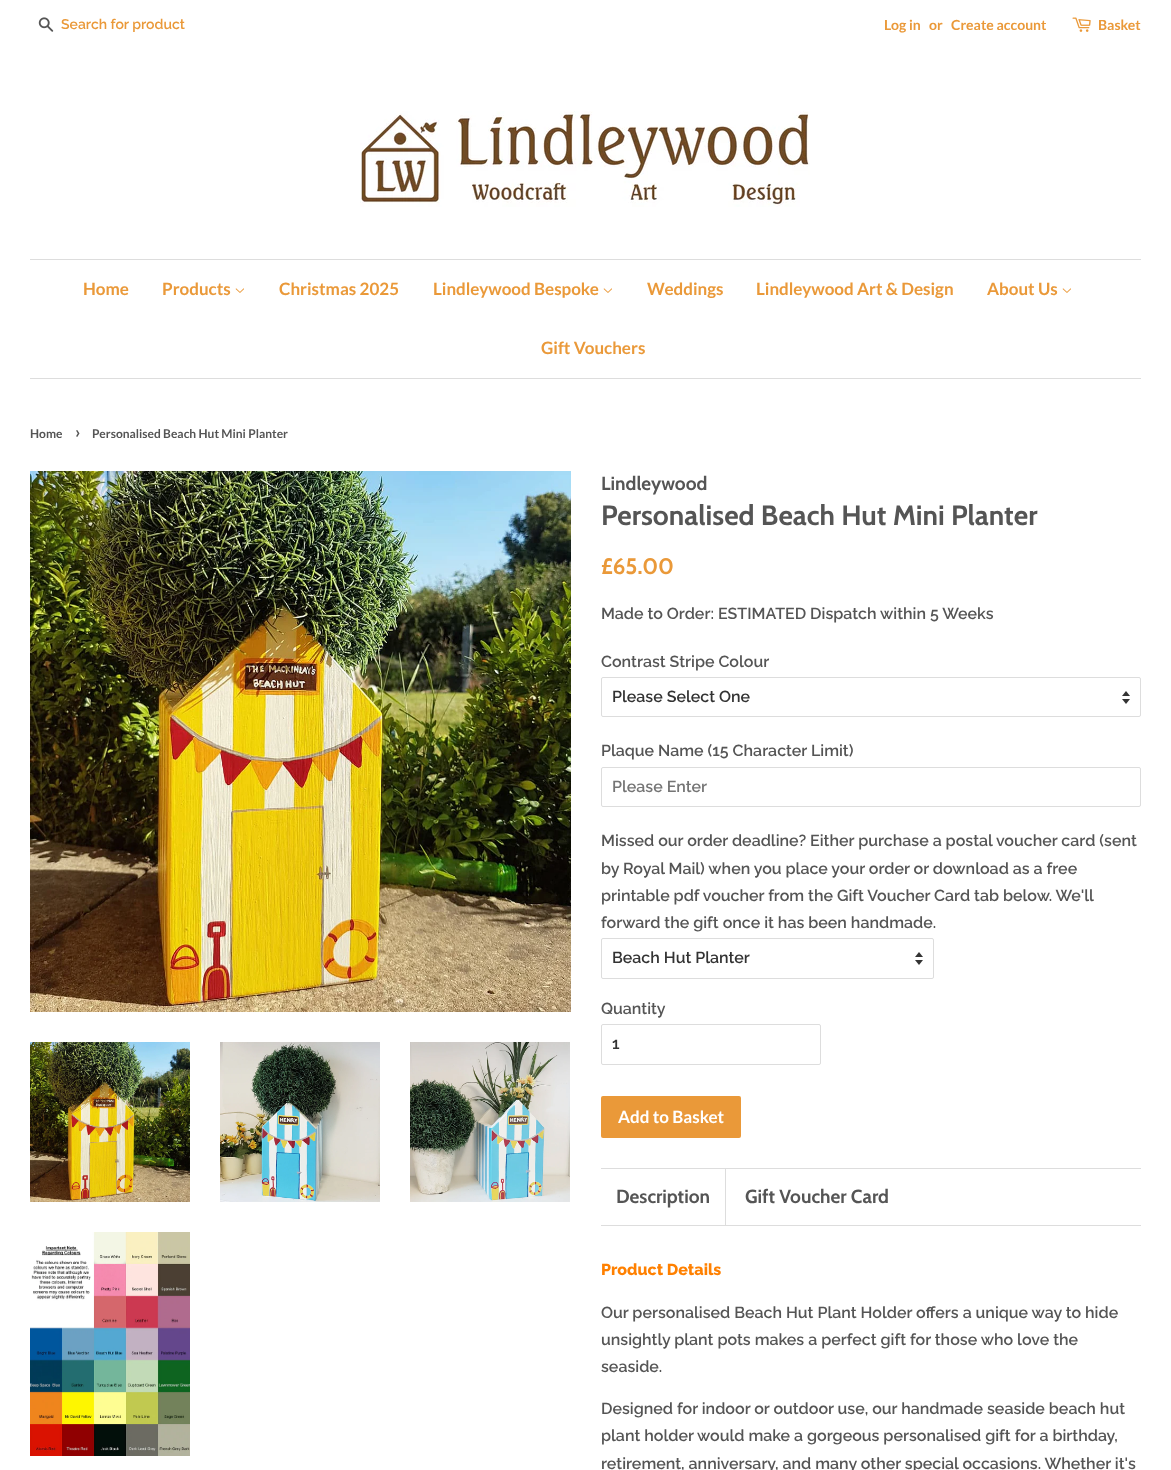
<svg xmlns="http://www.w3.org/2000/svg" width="1171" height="1470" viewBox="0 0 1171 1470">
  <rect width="100%" height="100%" fill="rgb(255,255,255)"/>
  <image x="38" y="17" width="16" height="15" href="pic1.png"/>
  <text x="61" y="29" font-family="Raleway" font-size="14" font-weight="600" fill="rgb(234,153,57)">Search for product</text>
  <g font-family="Lato" font-size="14" font-weight="bold" fill="rgb(234,153,57)">
    <text x="884" y="30">Log in</text>
    <text x="929" y="30">or</text>
    <text x="951" y="30">Create account</text>
  </g>
  <image x="1072" y="17" width="19" height="15" href="pic2.png"/>
  <text x="1098" y="30" font-family="Lato" font-size="14" font-weight="bold" fill="rgb(234,153,57)">Basket</text>
  <image x="360" y="111" width="450" height="96" href="pic3.png"/>
  <rect x="30" y="259" width="1111" height="1" fill="rgb(221,221,221)"/>
  <rect x="30" y="378" width="1111" height="1" fill="rgb(221,221,221)"/>
  <g font-family="Lato" font-size="17" font-weight="bold" fill="rgb(234,153,57)">
    <text x="83" y="295">Home</text>
    <text x="162" y="295">Products</text>
  </g>
  <image x="235" y="288" width="9" height="5" href="pic4.png"/>
  <g font-family="Lato" font-size="17" font-weight="bold" fill="rgb(234,153,57)">
    <text x="279" y="295">Christmas 2025</text>
    <text x="433" y="295">Lindleywood Bespoke</text>
  </g>
  <image x="603" y="288" width="9" height="5" href="pic4.png"/>
  <g font-family="Lato" font-size="17" font-weight="bold" fill="rgb(234,153,57)">
    <text x="647" y="295">Weddings</text>
    <text x="756" y="295">Lindleywood Art &amp; Design</text>
    <text x="987" y="295">About Us</text>
  </g>
  <image x="1062" y="288" width="9" height="5" href="pic4.png"/>
  <text x="541" y="354" font-family="Lato" font-size="17" font-weight="bold" fill="rgb(234,153,57)">Gift Vouchers</text>
  <text x="30" y="438" font-family="Lato" font-size="12" font-weight="bold" fill="rgb(85,85,85)">Home</text>
  <text x="75" y="438" font-family="Lato" font-size="17" font-weight="bold" fill="rgb(85,85,85)">›</text>
  <text x="92" y="438" font-family="Lato" font-size="12" font-weight="bold" fill="rgb(85,85,85)">Personalised Beach Hut Mini Planter</text>
  <image x="30" y="471" width="541" height="541" href="pic5.png"/>
  <image x="30" y="1042" width="160" height="160" href="pic6.png"/>
  <image x="220" y="1042" width="160" height="160" href="pic7.png"/>
  <image x="410" y="1042" width="160" height="160" href="pic8.png"/>
  <image x="30" y="1232" width="160" height="224" href="pic9.png"/>
  <text x="601" y="490" font-family="Cabin" font-size="19" font-weight="bold" fill="rgb(85,85,85)">Lindleywood</text>
  <text x="601" y="525" font-family="Cabin" font-size="28" font-weight="bold" fill="rgb(85,85,85)">Personalised Beach Hut Mini Planter</text>
  <text x="601" y="574" font-family="Cabin" font-size="22.5" font-weight="bold" fill="rgb(234,153,57)">£65.00</text>
  <g font-family="Raleway" font-size="16" font-weight="600" fill="rgb(85,85,85)">
    <text x="601" y="619">Made to Order: ESTIMATED Dispatch within 5 Weeks</text>
    <text x="601" y="667">Contrast Stripe Colour</text>
  </g>
  <image x="1122" y="691" width="8" height="13" href="pic10.png"/>
  <rect x="601.5" y="677.5" width="539" height="39" rx="1.5" fill="none" stroke="rgb(221,221,221)"/>
  <text x="612" y="702" font-family="Raleway" font-size="16" font-weight="600" fill="rgb(51,51,51)">Please Select One</text>
  <text x="601" y="756" font-family="Raleway" font-size="16" font-weight="600" fill="rgb(85,85,85)">Plaque Name (15 Character Limit)</text>
  <rect x="601.5" y="767.5" width="539" height="39" rx="1.5" fill="none" stroke="rgb(221,221,221)"/>
  <text x="612" y="792" font-family="Raleway" font-size="16" font-weight="600" fill="rgb(117,117,117)">Please Enter</text>
  <g font-family="Raleway" font-size="16" font-weight="600" fill="rgb(85,85,85)">
    <text>
      <tspan x="601" y="846">Missed our order deadline? Either purchase a postal voucher card (sent</tspan>
      <tspan x="601" y="874">by Royal Mail) when you place your order or download as a free</tspan>
      <tspan x="601" y="901">printable pdf voucher from the Gift Voucher Card tab below. We'll</tspan>
      <tspan x="601" y="928">forward the gift once it has been handmade.</tspan>
    </text>
  </g>
  <image x="915" y="952" width="8" height="13" href="pic10.png"/>
  <rect x="601.5" y="938.5" width="332" height="40" rx="1.5" fill="none" stroke="rgb(221,221,221)"/>
  <text x="612" y="963" font-family="Raleway" font-size="16" font-weight="600" fill="rgb(51,51,51)">Beach Hut Planter</text>
  <text x="601" y="1014" font-family="Raleway" font-size="16" font-weight="600" fill="rgb(85,85,85)">Quantity</text>
  <rect x="601.5" y="1024.5" width="219" height="40" rx="1.5" fill="none" stroke="rgb(221,221,221)"/>
  <text x="612" y="1049" font-family="Raleway" font-size="16" font-weight="600" fill="rgb(51,51,51)">1</text>
  <rect x="601" y="1096" width="140" height="42" rx="2" fill="rgb(234,153,57)"/>
  <text x="618" y="1123" font-family="Lato" font-size="17" font-weight="bold" fill="rgb(255,255,255)">Add to Basket</text>
  <rect x="601" y="1168" width="540" height="1" fill="rgb(221,221,221)"/>
  <rect x="601" y="1225" width="540" height="1" fill="rgb(221,221,221)"/>
  <rect x="725" y="1169" width="1" height="56" fill="rgb(221,221,221)"/>
  <g font-family="Cabin" font-size="19" font-weight="bold" fill="rgb(85,85,85)">
    <text x="616" y="1203">Description</text>
    <text x="745" y="1203">Gift Voucher Card</text>
  </g>
  <text x="601" y="1275" font-family="Raleway" font-size="16" font-weight="800" fill="rgb(255,128,0)">Product Details</text>
  <g font-family="Raleway" font-size="16" font-weight="600" fill="rgb(85,85,85)">
    <text>
      <tspan x="601" y="1318">Our personalised Beach Hut Plant Holder offers a unique way to hide</tspan>
      <tspan x="601" y="1345">unsightly plant pots makes a perfect gift for those who love the</tspan>
      <tspan x="601" y="1372">seaside.</tspan>
    </text>
    <text>
      <tspan x="601" y="1414">Designed for indoor or outdoor use, our handmade seaside beach hut</tspan>
      <tspan x="601" y="1441">plant holder would make a gorgeous personalised gift for a birthday,</tspan>
      <tspan x="601" y="1469">retirement, anniversary, and many other special occasions. Whether it's</tspan>
    </text>
  </g>
</svg>
